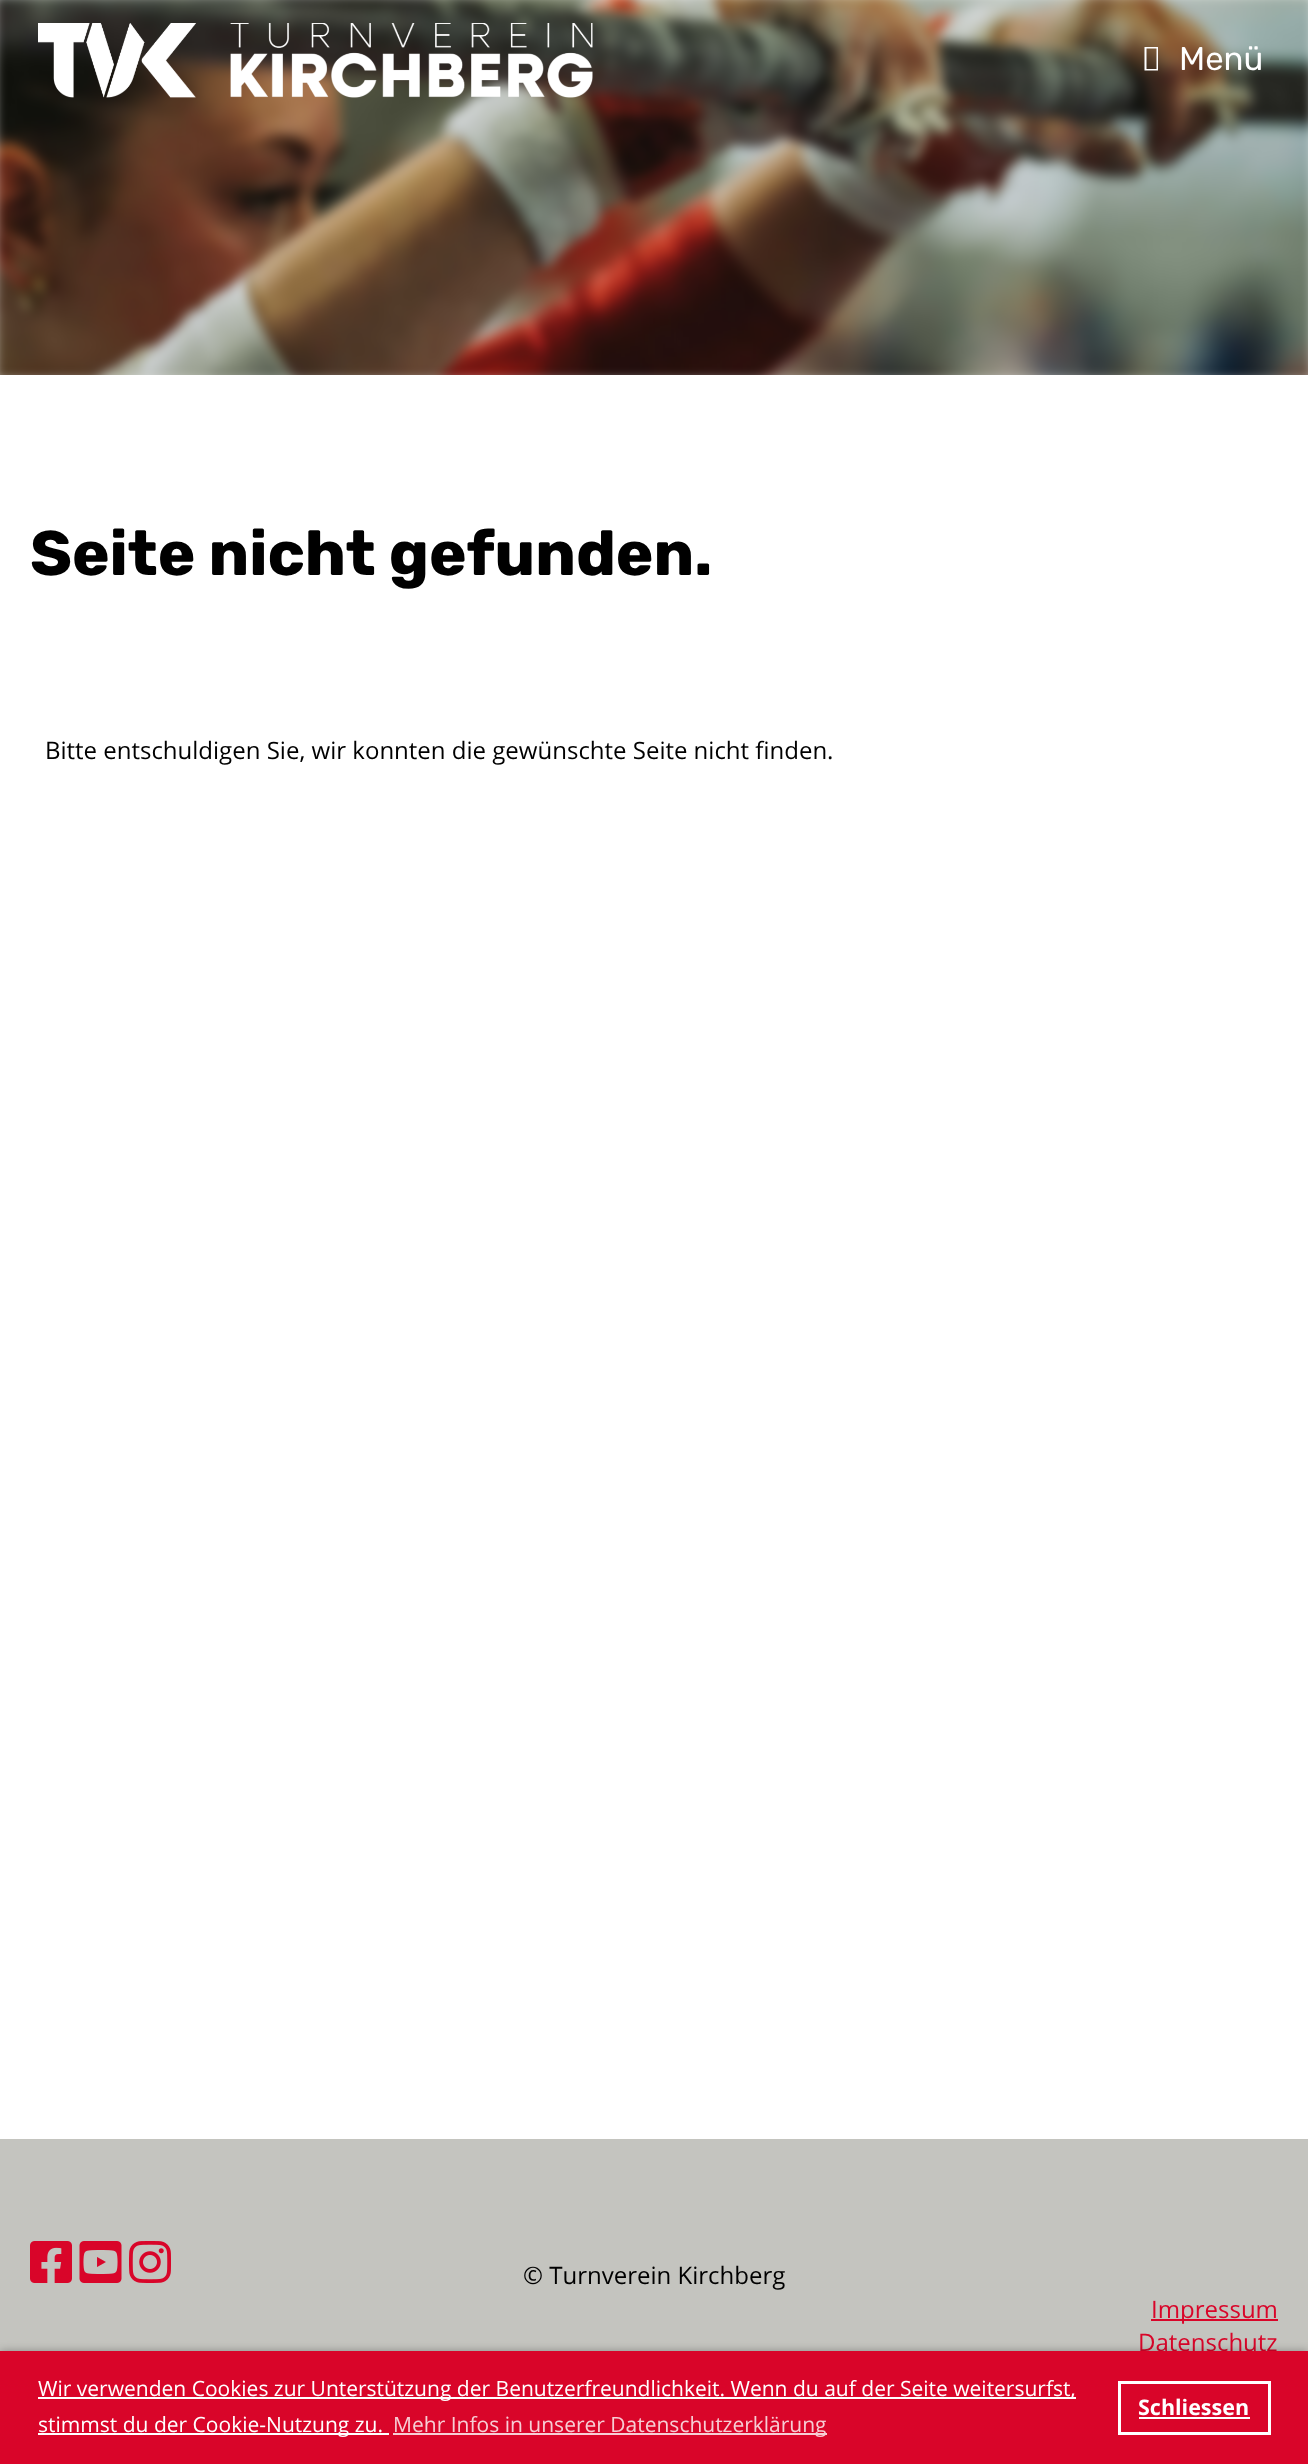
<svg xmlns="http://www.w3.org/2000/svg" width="1308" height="2464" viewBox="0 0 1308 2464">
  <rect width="100%" height="100%" fill="rgb(255,255,255)"/>
  <image x="0" y="0" width="1308" height="375" href="pic2.png"/>
  <image x="38" y="23" width="555" height="75" href="pic1.png"/>
  <path d="M1144.5 70.5V47H1158V70.5ZM1146.5 69H1156.5V48.5H1146.5Z" fill="rgb(255,255,255)"/>
  <text x="1179" y="70" font-family="Rubik" font-size="33" fill="rgb(255,255,255)">Menü</text>
  <text x="30" y="575" font-family="Rubik" font-size="63" font-weight="bold" fill="rgb(0,0,0)">Seite nicht gefunden.</text>
  <text x="45" y="759" font-family="Open Sans" font-size="24" fill="rgb(0,0,0)">Bitte entschuldigen Sie, wir konnten die gewünschte Seite nicht finden.</text>
  <rect x="0" y="2139" width="1308" height="212" fill="rgb(196,196,191)"/>
  <image x="30" y="2241" width="42" height="42" href="pic3.png"/>
  <image x="79" y="2241" width="43" height="42" href="pic4.png"/>
  <image x="129" y="2241" width="42" height="42" href="pic5.png"/>
  <text x="523" y="2284" font-family="Open Sans" font-size="24" fill="rgb(0,0,0)">© Turnverein Kirchberg</text>
  <rect x="1151" y="2319" width="127" height="2" fill="rgb(217,5,41)"/>
  <g font-family="Open Sans" font-size="24" fill="rgb(217,5,41)">
    <text x="1151" y="2318">Impressum</text>
    <text x="1138" y="2351">Datenschutz</text>
  </g>
  <rect x="0" y="2351" width="1308" height="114" fill="rgba(0,0,0,0.3)" filter="blur(4px)"/>
  <rect x="0" y="2351" width="1308" height="113" fill="rgb(217,5,41)"/>
  <rect x="38" y="2397" width="1038" height="2" fill="rgb(255,255,255)"/>
  <text x="38" y="2396" font-family="Open Sans" font-size="21" fill="rgb(255,255,255)">Wir verwenden Cookies zur Unterstützung der Benutzerfreundlichkeit. Wenn du auf der Seite weitersurfst,</text>
  <rect x="38" y="2433" width="351" height="2" fill="rgb(255,255,255)"/>
  <text x="38" y="2432" font-family="Open Sans" font-size="21" fill="rgb(255,255,255)">stimmst du der Cookie-Nutzung zu.</text>
  <rect x="393" y="2433" width="434" height="2" fill="rgb(247,205,212)"/>
  <text x="393" y="2432" font-family="Open Sans" font-size="21" fill="rgb(247,205,212)">Mehr Infos in unserer Datenschutzerklärung</text>
  <rect x="1119.5" y="2382.5" width="150" height="51" fill="none" stroke="rgb(255,255,255)" stroke-width="3"/>
  <text x="1138" y="2415" font-family="Open Sans" font-size="21.5" font-weight="bold" fill="rgb(255,255,255)">Schliessen</text>
  <rect x="1139" y="2417" width="111" height="2" fill="rgb(255,255,255)"/>
</svg>
